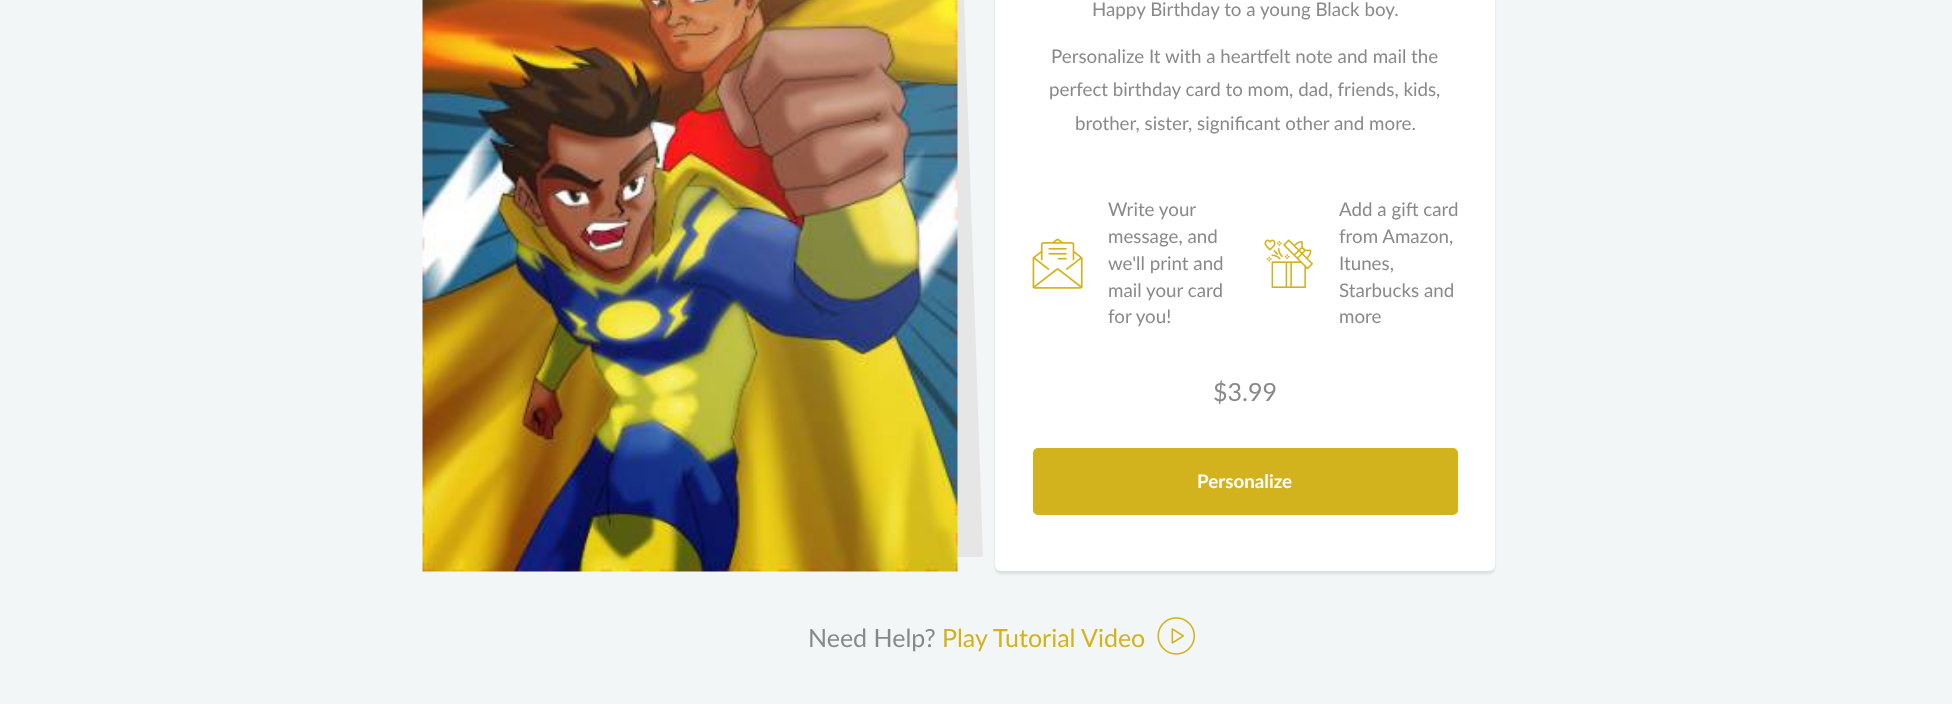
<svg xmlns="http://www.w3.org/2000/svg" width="1952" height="704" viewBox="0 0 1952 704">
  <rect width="100%" height="100%" fill="rgb(243,246,246)"/>
  <path d="M690-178H958L983 557H716Z" fill="rgb(230,230,230)"/>
  <image x="422" y="0" width="536" height="572" href="pic1.png"/>
  <rect x="995" y="-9" width="500" height="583" rx="6" fill="rgba(11,25,28,0.1)" filter="blur(1px)"/>
  <rect x="995" y="-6" width="500" height="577" rx="6" fill="rgb(255,255,255)"/>
  <g font-family="Lato" font-size="18.75" fill="rgb(137,137,137)">
    <text x="1092" y="16">Happy Birthday to a young Black boy.</text>
    <text x="1051" y="63">Personalize It with a heartfelt note and mail the</text>
    <text x="1049" y="96">perfect birthday card to mom, dad, friends, kids,</text>
    <text x="1075" y="130">brother, sister, significant other and more.</text>
  </g>
  <image x="1032" y="238" width="51" height="51" href="pic2.png"/>
  <g font-family="Lato" font-size="18.75" fill="rgb(137,137,137)">
    <text>
      <tspan x="1108" y="216">Write your</tspan>
      <tspan x="1108" y="243">message, and</tspan>
      <tspan x="1108" y="270">we'll print and</tspan>
      <tspan x="1108" y="297">mail your card</tspan>
      <tspan x="1108" y="323">for you!</tspan>
    </text>
  </g>
  <image x="1264" y="239" width="49" height="49" href="pic3.png"/>
  <g font-family="Lato" font-size="18.75" fill="rgb(137,137,137)">
    <text>
      <tspan x="1339" y="216">Add a gift card</tspan>
      <tspan x="1339" y="243">from Amazon,</tspan>
      <tspan x="1339" y="270">Itunes,</tspan>
      <tspan x="1339" y="297">Starbucks and</tspan>
      <tspan x="1339" y="323">more</tspan>
    </text>
  </g>
  <text x="1213" y="401" font-family="Lato" font-size="25" fill="rgb(137,137,137)">$3.99</text>
  <rect x="1033" y="448" width="425" height="67" rx="5" fill="rgb(210,179,29)"/>
  <text x="1197" y="488" font-family="Lato" font-size="18.75" font-weight="bold" fill="rgb(255,255,255)">Personalize</text>
  <text x="808" y="647" font-family="Lato" font-size="25" fill="rgb(137,137,137)">Need Help?</text>
  <text x="942" y="647" font-family="Lato" font-size="25" fill="rgb(210,179,29)">Play Tutorial Video</text>
  <image x="1157" y="617" width="38" height="38" href="pic4.png"/>
</svg>
